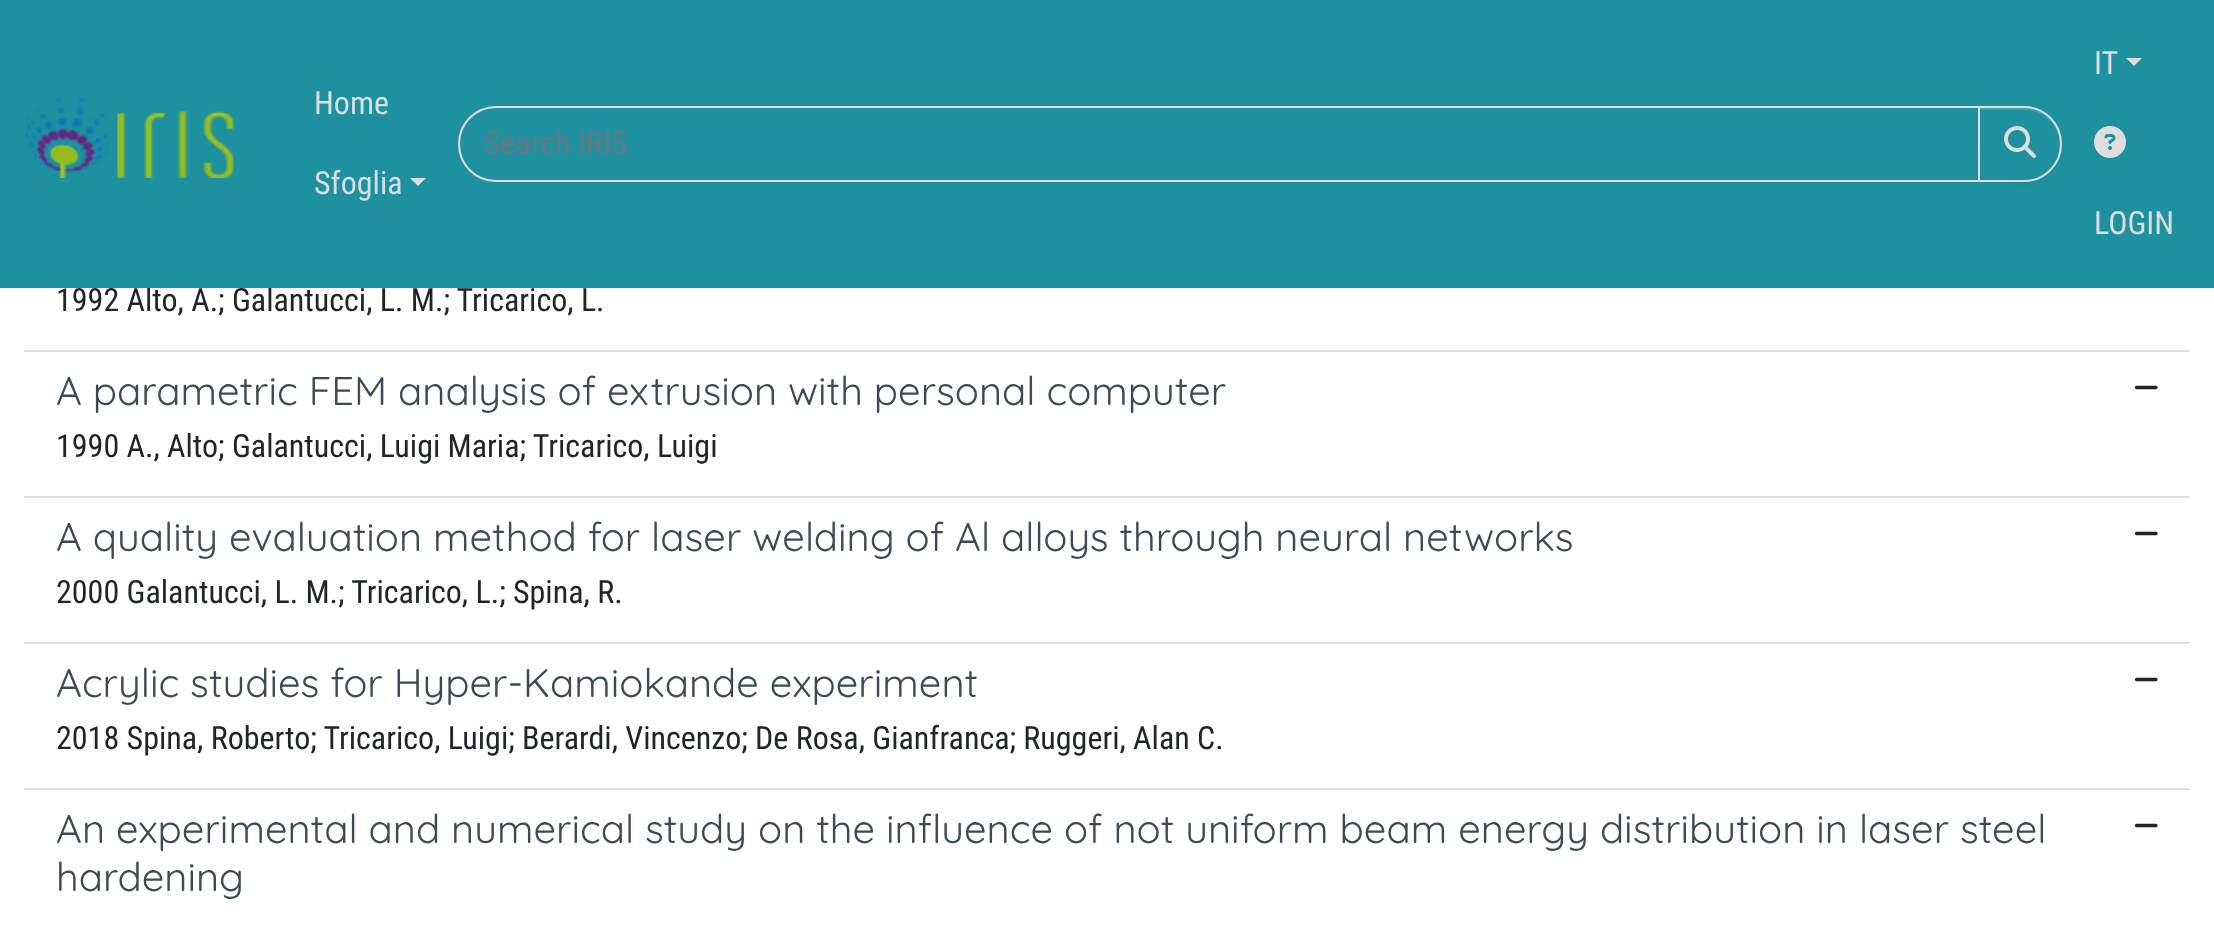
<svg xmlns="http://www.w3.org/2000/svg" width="2214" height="927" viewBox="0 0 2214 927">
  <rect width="100%" height="100%" fill="rgb(255,255,255)"/>
  <text x="56" y="311" font-family="Roboto Condensed" font-size="32" fill="rgb(33,37,41)">1992 Alto, A.; Galantucci, L. M.; Tricarico, L.</text>
  <rect x="0" y="0" width="2214" height="288" fill="rgb(29,145,159)"/>
  <image x="25" y="98" width="209" height="80" href="pic1.png"/>
  <g font-family="Roboto Condensed" font-size="32" fill="rgb(221,221,221)">
    <text x="314" y="114">Home</text>
    <text x="314" y="194">Sfoglia</text>
  </g>
  <path d="M410 178H426L418 186Z" fill="rgb(221,221,221)"/>
  <path d="M496 107H1979V181H496C475.5 181 459 164.5 459 144C459 123.5 475.5 107 496 107Z" fill="none" stroke="rgb(221,221,221)" stroke-width="2"/>
  <text x="484" y="154" font-family="Roboto Condensed" font-size="32" fill="rgb(108,117,125)">Search IRIS</text>
  <rect x="1978" y="108" width="84" height="76" rx="38" fill="rgba(0,0,0,0.07)" filter="blur(1px)"/>
  <path d="M1978 106H2024C2045 106 2062 123 2062 144C2062 165 2045 182 2024 182H1978Z" fill="rgb(29,145,159)"/>
  <path d="M1980 110H2024C2044 110 2059 125 2060 145V144C2060 124 2044 108 2024 108H1980Z" fill="rgb(63,162,173)"/>
  <path d="M1979 107H2024C2044.5 107 2061 123.5 2061 144C2061 164.5 2044.5 181 2024 181H1979Z" fill="none" stroke="rgb(221,221,221)" stroke-width="2"/>
  <image x="2004" y="126" width="32" height="32" href="pic2.png"/>
  <text x="2094" y="74" font-family="Roboto Condensed" font-size="32" fill="rgb(221,221,221)">IT</text>
  <path d="M2126 58H2142L2134 66Z" fill="rgb(221,221,221)"/>
  <image x="2094" y="126" width="32" height="32" href="pic3.png"/>
  <text x="2094" y="234" font-family="Roboto Condensed" font-size="32" fill="rgb(221,221,221)">LOGIN</text>
  <rect x="24" y="350" width="2166" height="2" fill="rgb(223,223,223)"/>
  <rect x="24" y="496" width="2166" height="2" fill="rgb(223,223,223)"/>
  <text x="56" y="405" font-family="Quicksand" font-size="40" font-weight="300" fill="rgb(58,75,85)">A parametric FEM analysis of extrusion with personal computer</text>
  <image x="2134" y="385" width="24" height="5" href="pic4.png"/>
  <text x="56" y="457" font-family="Roboto Condensed" font-size="32" fill="rgb(33,37,41)">1990 A., Alto; Galantucci, Luigi Maria; Tricarico, Luigi</text>
  <rect x="24" y="642" width="2166" height="2" fill="rgb(223,223,223)"/>
  <text x="56" y="551" font-family="Quicksand" font-size="40" font-weight="300" fill="rgb(58,75,85)">A quality evaluation method for laser welding of Al alloys through neural networks</text>
  <image x="2134" y="531" width="24" height="5" href="pic4.png"/>
  <text x="56" y="603" font-family="Roboto Condensed" font-size="32" fill="rgb(33,37,41)">2000 Galantucci, L. M.; Tricarico, L.; Spina, R.</text>
  <rect x="24" y="788" width="2166" height="2" fill="rgb(223,223,223)"/>
  <text x="56" y="697" font-family="Quicksand" font-size="40" font-weight="300" fill="rgb(58,75,85)">Acrylic studies for Hyper-Kamiokande experiment</text>
  <image x="2134" y="677" width="24" height="5" href="pic4.png"/>
  <text x="56" y="749" font-family="Roboto Condensed" font-size="32" fill="rgb(33,37,41)">2018 Spina, Roberto; Tricarico, Luigi; Berardi, Vincenzo; De Rosa, Gianfranca; Ruggeri, Alan C.</text>
  <g font-family="Quicksand" font-size="40" font-weight="300" fill="rgb(58,75,85)">
    <text>
      <tspan x="56" y="843">An experimental and numerical study on the influence of not uniform beam energy distribution in laser steel</tspan>
      <tspan x="56" y="891">hardening</tspan>
    </text>
  </g>
  <image x="2134" y="823" width="24" height="5" href="pic4.png"/>
</svg>
